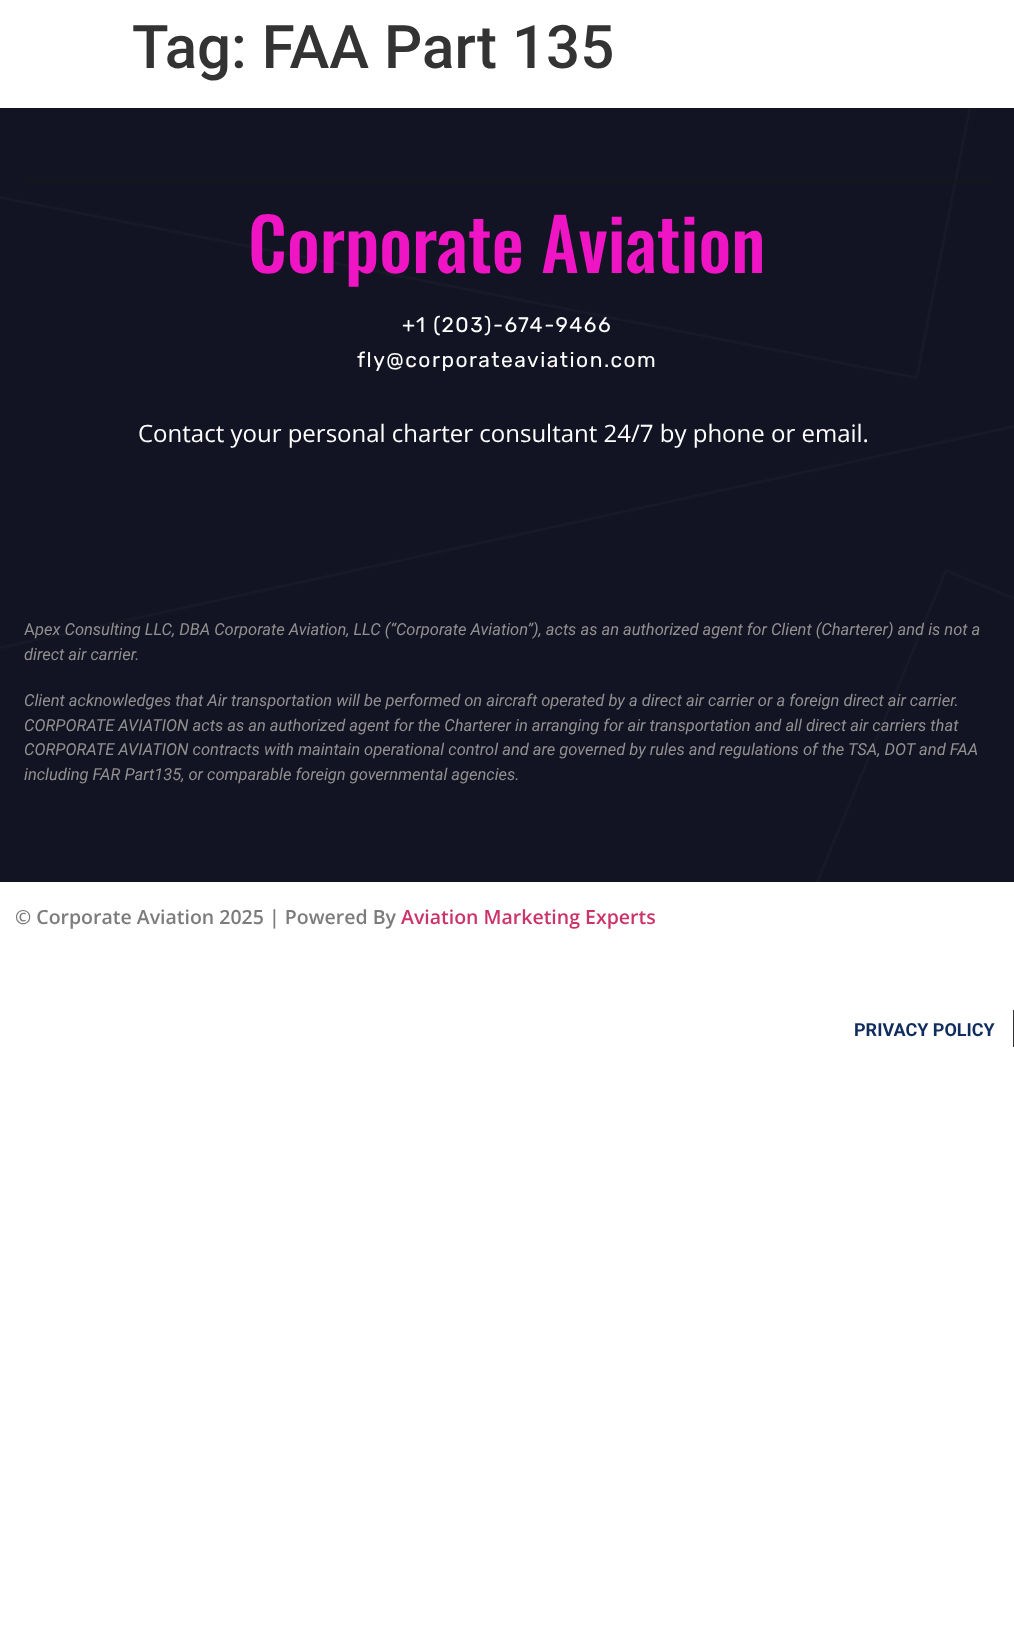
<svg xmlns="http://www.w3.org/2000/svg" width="1014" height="1644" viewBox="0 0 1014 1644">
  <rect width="100%" height="100%" fill="rgb(255,255,255)"/>
  <text x="132" y="68" font-family="Roboto" font-size="60" font-weight="500" fill="rgb(51,51,51)">Tag: FAA Part 135</text>
  <image x="0" y="108" width="1014" height="774" href="pic1.png"/>
  <rect x="24" y="180" width="966" height="2" fill="rgb(22,22,22)"/>
  <text x="248" y="273" font-family="Oswald" font-size="72" font-weight="500" fill="rgb(239,21,196)">Corporate Aviation</text>
  <g font-family="Rubik" font-size="21" letter-spacing="1.5" fill="rgb(255,255,255)">
    <text x="402" y="332">+1 (203)-674-9466</text>
    <text x="357" y="367">fly@corporateaviation.com</text>
  </g>
  <text x="138" y="442" font-family="Open Sans" font-size="24" fill="rgb(255,255,255)">Contact your personal charter consultant 24/7 by phone or email.</text>
  <text x="24" y="635" font-family="Roboto" font-size="16.5" fill="rgb(145,143,143)">A</text>
  <g font-family="Roboto" font-size="16.5" font-style="italic" fill="rgb(145,143,143)">
    <text x="35" y="635">pex Consulting LLC, DBA Corporate Aviation, LLC (“Corporate Aviation”), acts as an authorized agent for Client (Charterer) and is not a</text>
    <text x="24" y="660">direct air carrier.</text>
    <text>
      <tspan x="24" y="706">Client acknowledges that Air transportation will be performed on aircraft operated by a direct air carrier or a foreign direct air carrier.</tspan>
      <tspan x="24" y="731">CORPORATE AVIATION acts as an authorized agent for the Charterer in arranging for air transportation and all direct air carriers that</tspan>
      <tspan x="24" y="755">CORPORATE AVIATION contracts with maintain operational control and are governed by rules and regulations of the TSA, DOT and FAA</tspan>
      <tspan x="24" y="780">including FAR Part135, or comparable foreign governmental agencies.</tspan>
    </text>
  </g>
  <text x="15" y="924" font-family="Open Sans" font-size="19.5" font-weight="600" fill="rgb(124,124,124)">© Corporate Aviation 2025 | Powered By</text>
  <text x="401" y="924" font-family="Open Sans" font-size="19.5" font-weight="600" fill="rgb(204,51,102)">Aviation Marketing Experts</text>
  <rect x="1013" y="1010" width="1" height="37" fill="rgb(51,51,51)"/>
  <text x="854" y="1036" font-family="Roboto" font-size="18" font-weight="bold" fill="rgb(16,45,94)">PRIVACY POLICY</text>
</svg>
